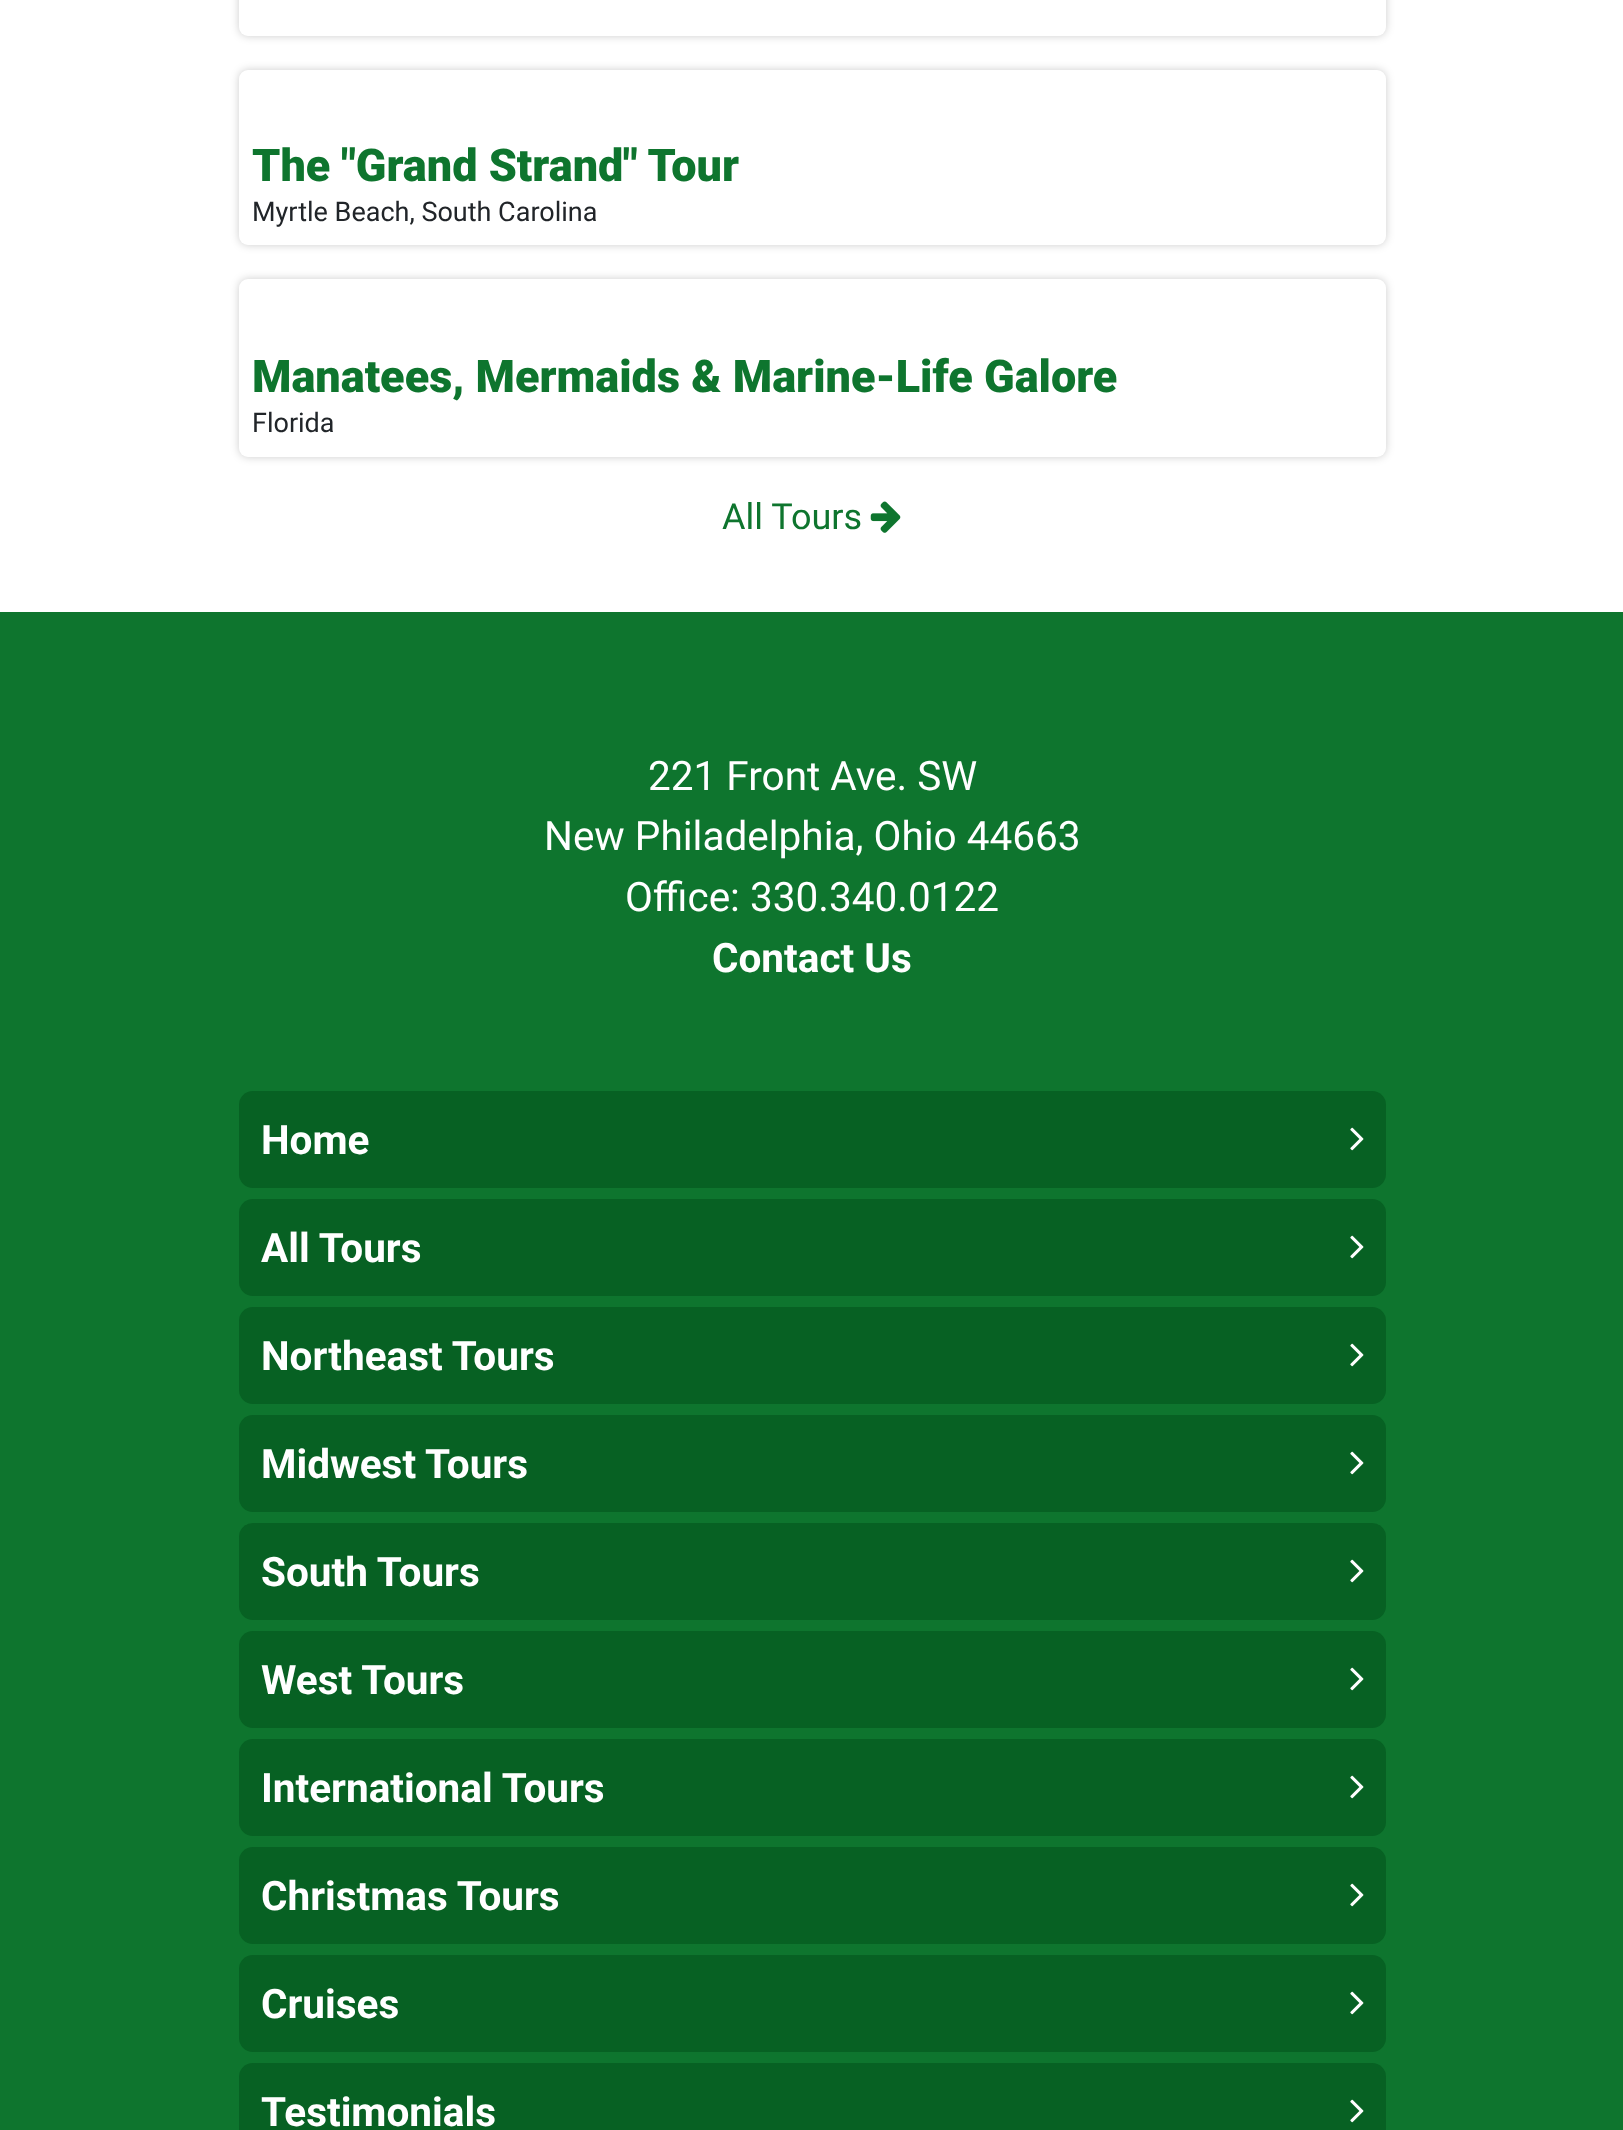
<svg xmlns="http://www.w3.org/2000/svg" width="1623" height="2130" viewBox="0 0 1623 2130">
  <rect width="100%" height="100%" fill="rgb(255,255,255)"/>
  <rect x="239" y="-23" width="1147" height="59" rx="9" fill="rgba(0,0,0,0.2)" filter="blur(4.5px)"/>
  <rect x="239" y="-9" width="1147" height="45" rx="9" fill="rgb(255,255,255)"/>
  <rect x="239" y="70" width="1147" height="175" rx="9" fill="rgba(0,0,0,0.2)" filter="blur(4.5px)"/>
  <rect x="239" y="70" width="1147" height="175" rx="9" fill="rgb(255,255,255)"/>
  <text x="252" y="181" font-family="Roboto" font-size="45" font-weight="900" fill="rgb(14,117,46)">The "Grand Strand" Tour</text>
  <text x="252" y="221" font-family="Roboto" font-size="27" fill="rgb(33,37,41)">Myrtle Beach, South Carolina</text>
  <rect x="239" y="279" width="1147" height="178" rx="9" fill="rgba(0,0,0,0.2)" filter="blur(4.5px)"/>
  <rect x="239" y="279" width="1147" height="178" rx="9" fill="rgb(255,255,255)"/>
  <text x="252" y="392" font-family="Roboto" font-size="45" font-weight="900" fill="rgb(14,117,46)">Manatees, Mermaids &amp; Marine-Life Galore</text>
  <text x="252" y="432" font-family="Roboto" font-size="27" fill="rgb(33,37,41)">Florida</text>
  <text x="722" y="529" font-family="Roboto" font-size="36" fill="rgb(14,117,46)">All Tours</text>
  <image x="870" y="501" width="31" height="32" href="pic1.png"/>
  <rect x="0" y="612" width="1623" height="1518" fill="rgb(14,117,46)"/>
  <g font-family="Roboto" font-size="40.5" fill="rgb(255,255,255)">
    <text x="648" y="790">221 Front Ave. SW</text>
    <text x="544" y="850">New Philadelphia, Ohio 44663</text>
    <text x="625" y="911">Office: 330.340.0122</text>
  </g>
  <text x="712" y="972" font-family="Roboto" font-size="40.5" font-weight="bold" fill="rgb(255,255,255)">Contact Us</text>
  <rect x="239" y="1091" width="1147" height="97" rx="14" fill="rgb(7,97,35)"/>
  <text x="261" y="1154" font-family="Roboto" font-size="40.5" font-weight="bold" fill="rgb(255,255,255)">Home</text>
  <image x="1350" y="1127" width="14" height="24" href="pic2.png"/>
  <rect x="239" y="1199" width="1147" height="97" rx="14" fill="rgb(7,97,35)"/>
  <text x="261" y="1262" font-family="Roboto" font-size="40.5" font-weight="bold" fill="rgb(255,255,255)">All Tours</text>
  <image x="1350" y="1235" width="14" height="24" href="pic2.png"/>
  <rect x="239" y="1307" width="1147" height="97" rx="14" fill="rgb(7,97,35)"/>
  <text x="261" y="1370" font-family="Roboto" font-size="40.5" font-weight="bold" fill="rgb(255,255,255)">Northeast Tours</text>
  <image x="1350" y="1343" width="14" height="24" href="pic2.png"/>
  <rect x="239" y="1415" width="1147" height="97" rx="14" fill="rgb(7,97,35)"/>
  <text x="261" y="1478" font-family="Roboto" font-size="40.5" font-weight="bold" fill="rgb(255,255,255)">Midwest Tours</text>
  <image x="1350" y="1451" width="14" height="24" href="pic2.png"/>
  <rect x="239" y="1523" width="1147" height="97" rx="14" fill="rgb(7,97,35)"/>
  <text x="261" y="1586" font-family="Roboto" font-size="40.5" font-weight="bold" fill="rgb(255,255,255)">South Tours</text>
  <image x="1350" y="1559" width="14" height="24" href="pic2.png"/>
  <rect x="239" y="1631" width="1147" height="97" rx="14" fill="rgb(7,97,35)"/>
  <text x="261" y="1694" font-family="Roboto" font-size="40.5" font-weight="bold" fill="rgb(255,255,255)">West Tours</text>
  <image x="1350" y="1667" width="14" height="24" href="pic2.png"/>
  <rect x="239" y="1739" width="1147" height="97" rx="14" fill="rgb(7,97,35)"/>
  <text x="261" y="1802" font-family="Roboto" font-size="40.5" font-weight="bold" fill="rgb(255,255,255)">International Tours</text>
  <image x="1350" y="1775" width="14" height="24" href="pic2.png"/>
  <rect x="239" y="1847" width="1147" height="97" rx="14" fill="rgb(7,97,35)"/>
  <text x="261" y="1910" font-family="Roboto" font-size="40.5" font-weight="bold" fill="rgb(255,255,255)">Christmas Tours</text>
  <image x="1350" y="1883" width="14" height="24" href="pic2.png"/>
  <rect x="239" y="1955" width="1147" height="97" rx="14" fill="rgb(7,97,35)"/>
  <text x="261" y="2018" font-family="Roboto" font-size="40.5" font-weight="bold" fill="rgb(255,255,255)">Cruises</text>
  <image x="1350" y="1991" width="14" height="24" href="pic2.png"/>
  <rect x="239" y="2063" width="1147" height="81" rx="14" fill="rgb(7,97,35)"/>
  <text x="261" y="2126" font-family="Roboto" font-size="40.5" font-weight="bold" fill="rgb(255,255,255)">Testimonials</text>
  <image x="1350" y="2099" width="14" height="24" href="pic2.png"/>
</svg>
